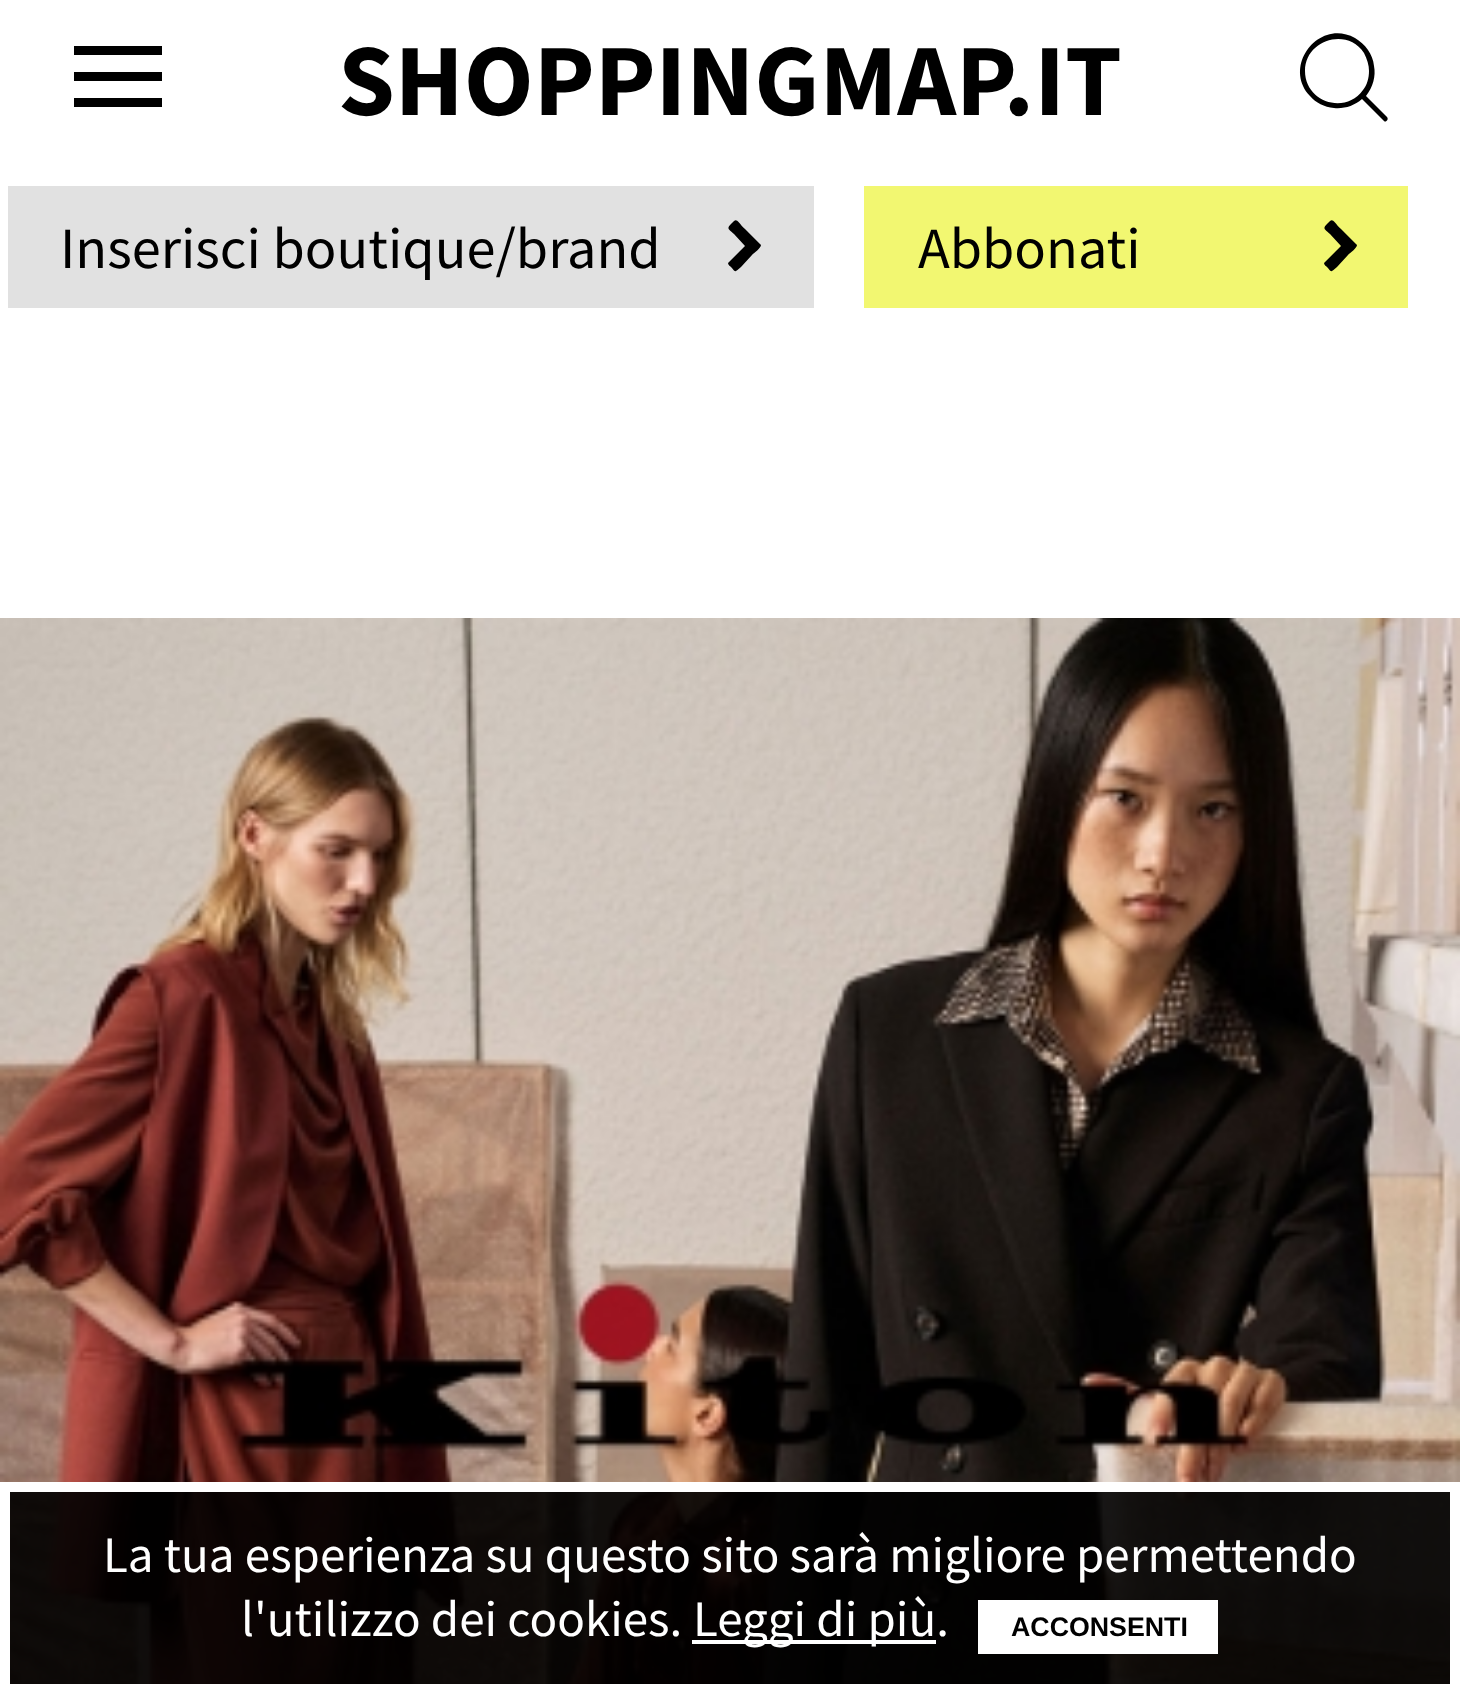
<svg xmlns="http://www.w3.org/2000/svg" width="1460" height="1694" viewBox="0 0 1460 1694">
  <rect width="100%" height="100%" fill="rgb(255,255,255)"/>
  <text x="338" y="115" font-family="Source Sans Pro" font-size="102.25" font-weight="bold" fill="rgb(0,0,0)">SHOPPINGMAP.IT</text>
  <path d="M74 46H162V55H74ZM74 72H162V81H74ZM74 98H162V107H74Z" fill="rgb(0,0,0)"/>
  <path d="M1387 117L1366 96C1373 87 1376 76 1374 66C1373 54 1365 44 1355 38C1319 18 1282 66 1310 96C1316 103 1324 107 1334 108C1344 109 1354 106 1362 99L1384 121C1386 123 1389 119 1387 117ZM1305 71C1305 40 1347 27 1364 53C1367 59 1369 65 1369 71C1369 78 1367 85 1363 90C1345 115 1305 102 1305 71Z" fill="rgb(0,0,0)"/>
  <rect x="8" y="186" width="806" height="122" fill="rgb(225,225,225)"/>
  <text x="60" y="268" font-family="Source Sans Pro" font-size="58.4" fill="rgb(0,0,0)">Inserisci boutique/brand</text>
  <path d="M760 244L761 245C761 248 754 253 752 255L741 267C735 272 736 273 731 267C730 266 728 265 728 263L745 246L734 234C729 229 726 229 731 224C737 217 736 220 745 229Z" fill="rgb(0,0,0)"/>
  <rect x="864" y="186" width="544" height="122" fill="rgb(242,247,113)"/>
  <text x="918" y="268" font-family="Source Sans Pro" font-size="58.4" fill="rgb(0,0,0)">Abbonati</text>
  <path d="M1356 244L1357 245C1357 248 1350 253 1348 255L1337 267C1331 272 1332 273 1327 267C1326 266 1324 265 1324 263L1341 246L1330 234C1325 229 1322 229 1327 224C1333 217 1332 220 1341 229Z" fill="rgb(0,0,0)"/>
  <image x="0" y="618" width="1460" height="1066" href="pic1.png"/>
  <rect x="5" y="1487" width="1450" height="202" fill="rgba(0,0,0,0.9)" stroke="rgb(255,255,255)" stroke-width="10"/>
  <g font-family="Source Sans Pro" font-size="51.1" fill="rgb(255,255,255)">
    <text x="103" y="1572">La tua esperienza su questo sito sarà migliore permettendo</text>
    <text x="241" y="1636">l'utilizzo dei cookies.</text>
  </g>
  <rect x="692" y="1640" width="244" height="4" fill="rgb(255,255,255)"/>
  <text x="693" y="1636" font-family="Source Sans Pro" font-size="51.1" fill="rgb(255,255,255)">Leggi di più.</text>
  <rect x="978" y="1600" width="240" height="54" fill="rgb(255,255,255)"/>
  <text x="1011" y="1636" font-family="Liberation Sans" font-size="26.75" font-weight="bold" fill="rgb(0,0,0)">ACCONSENTI</text>
</svg>
